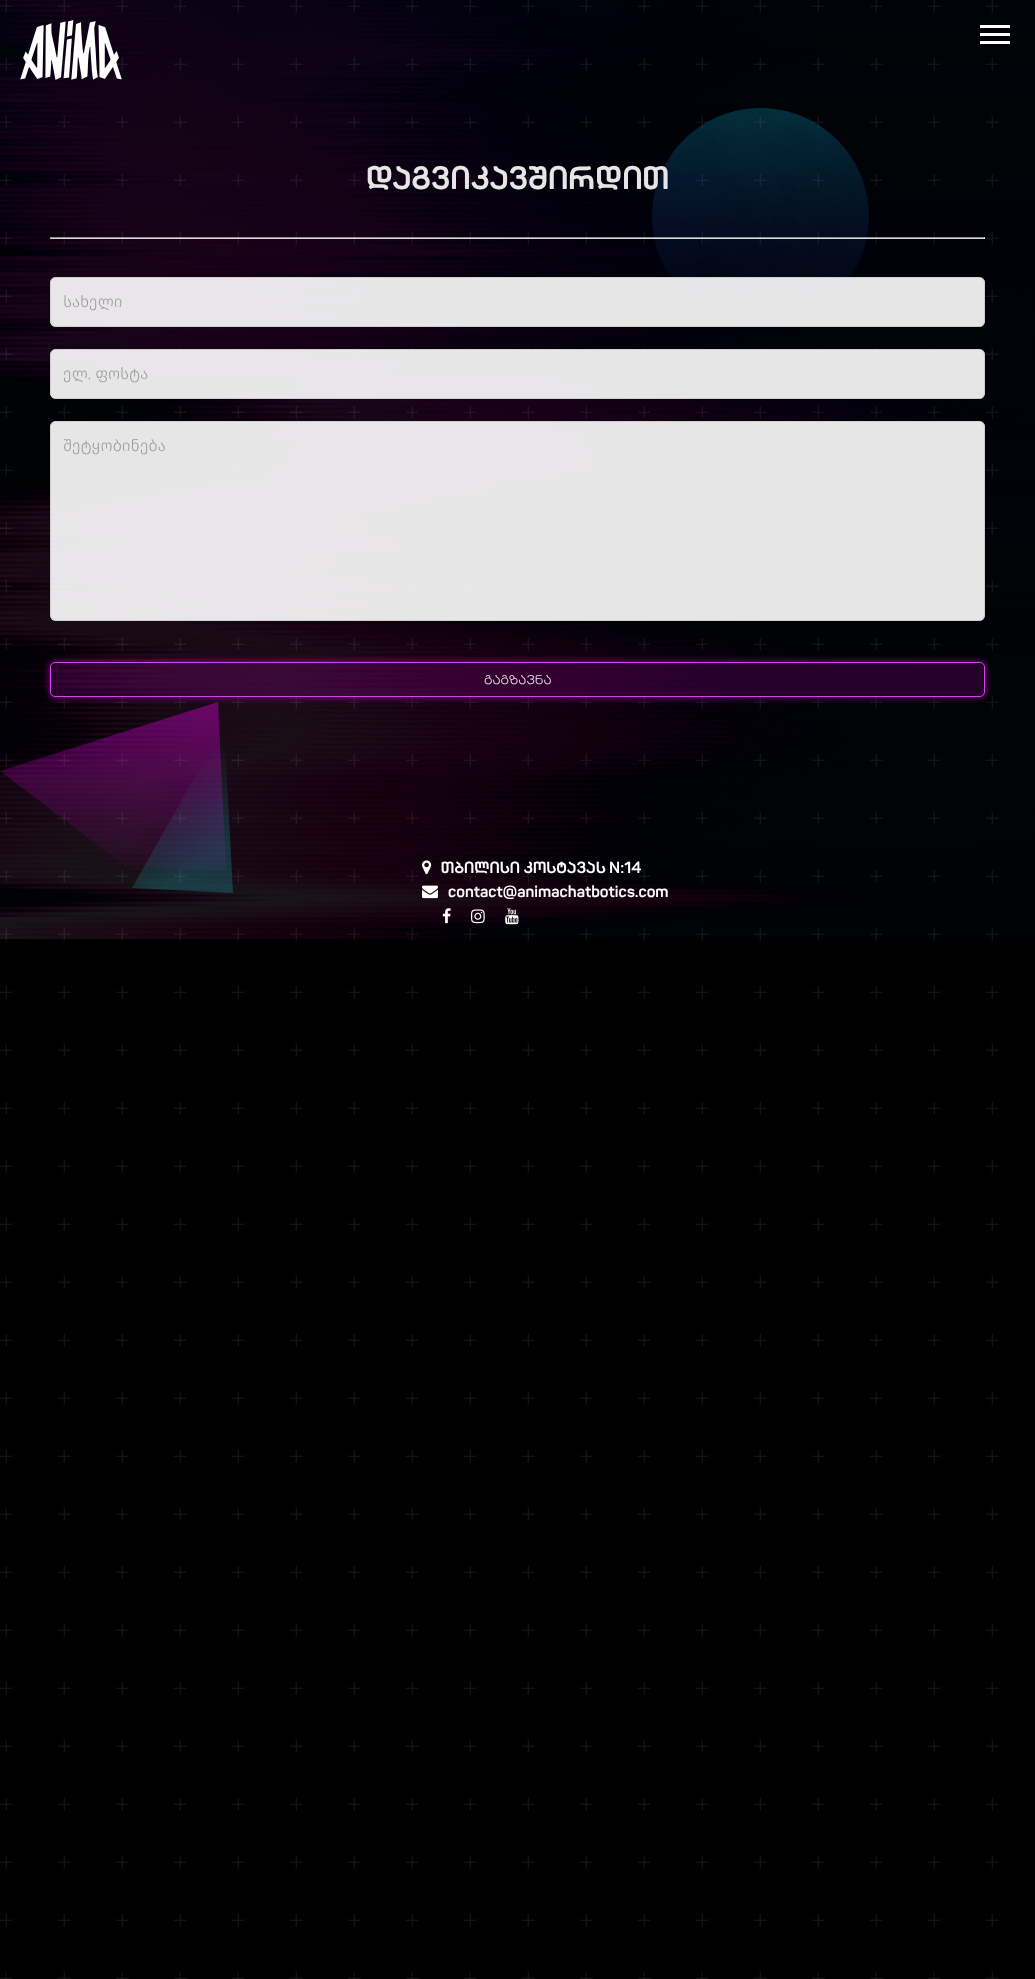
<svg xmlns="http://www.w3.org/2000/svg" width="1035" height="1979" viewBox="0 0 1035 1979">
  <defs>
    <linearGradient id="g1" gradientUnits="userSpaceOnUse" x1="208" y1="694" x2="185" y2="894"><stop offset="0" stop-color="rgb(255,0,255)" stop-opacity="0.37"/><stop offset="1" stop-color="rgb(255,0,255)" stop-opacity="0"/></linearGradient>
    <linearGradient id="g2" gradientUnits="userSpaceOnUse" x1="191" y1="870" x2="141" y2="795"><stop offset="0" stop-color="rgb(31,242,253)" stop-opacity="0.19"/><stop offset="1" stop-color="rgb(31,242,253)" stop-opacity="0"/></linearGradient>
    <clipPath id="clip1"><path d="M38 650H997V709H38ZM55 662H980C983 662 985 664 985 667V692C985 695 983 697 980 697H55C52 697 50 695 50 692V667C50 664 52 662 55 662Z" clip-rule="evenodd"/></clipPath>
  </defs>
  <rect width="100%" height="100%" fill="rgb(0,0,0)"/>
  <image x="0" y="0" width="999" height="1979" href="pic1.png"/>
  <image x="0" y="0" width="1035" height="939" href="pic2.png"/>
  <image x="20" y="20" width="102" height="60" href="pic3.png"/>
  <rect x="980" y="25" width="30" height="3" fill="rgb(255,255,255)"/>
  <rect x="980" y="33" width="30" height="3" fill="rgb(255,255,255)"/>
  <rect x="980" y="41" width="30" height="3" fill="rgb(255,255,255)"/>
  <image x="652" y="108" width="217" height="214" href="pic4.png"/>
  <path d="M0 771L218 702L226 870L125 866Z" fill="url(#g1)"/>
  <path d="M233 893L132 888L224 725Z" fill="url(#g2)"/>
  <text x="366" y="189" font-family="'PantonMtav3'" font-size="32" font-weight="bold" fill="rgb(230,230,231)">დაგვიკავშირდით</text>
  <rect x="50" y="237" width="935" height="1" fill="rgba(159,159,159,0.9)"/>
  <rect x="984" y="237" width="1" height="2" fill="rgb(214,214,215)"/>
  <rect x="50" y="238" width="935" height="1" fill="rgba(238,238,238,0.9)"/>
  <rect x="50" y="237" width="1" height="2" fill="rgba(159,159,159,0.9)"/>
  <rect x="50" y="277" width="935" height="50" rx="6" fill="rgba(255,255,255,0.9)"/>
  <rect x="50.5" y="277.5" width="934" height="49" rx="5.5" fill="none" stroke="rgba(204,204,204,0.9)"/>
  <text x="63" y="307" font-family="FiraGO" font-size="16" font-weight="300" fill="rgb(152,152,152)">სახელი</text>
  <rect x="50" y="349" width="935" height="50" rx="6" fill="rgba(255,255,255,0.9)"/>
  <rect x="50.5" y="349.5" width="934" height="49" rx="5.5" fill="none" stroke="rgba(204,204,204,0.9)"/>
  <text x="63" y="379" font-family="FiraGO" font-size="16" font-weight="300" fill="rgb(152,152,152)">ელ. ფოსტა</text>
  <rect x="50" y="421" width="935" height="200" rx="6" fill="rgba(255,255,255,0.9)"/>
  <rect x="50.5" y="421.5" width="934" height="199" rx="5.5" fill="none" stroke="rgba(204,204,204,0.9)"/>
  <text x="63" y="451" font-family="FiraGO" font-size="16" font-weight="300" fill="rgb(152,152,152)">შეტყობინება</text>
  <g clip-path="url(#clip1)">
    <rect x="50" y="662" width="935" height="35" rx="5" fill="rgba(255,0,255,0.59)" filter="blur(3.5px)"/>
  </g>
  <rect x="50" y="662" width="935" height="35" rx="5" fill="rgba(255,0,255,0.14)"/>
  <rect x="50.5" y="662.5" width="934" height="34" rx="4.5" fill="none" stroke="rgba(226,78,255,0.9)"/>
  <text x="484" y="684" font-family="'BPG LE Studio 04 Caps'" font-size="12" font-weight="300" fill="rgb(230,230,231)">გაგზავნა</text>
  <image x="422" y="860" width="10" height="15" href="pic5.png"/>
  <text x="441" y="873" font-family="'PantonMtav3'" font-size="16" font-weight="bold" fill="rgb(255,255,255)">თბილისი კოსტავას N:14</text>
  <image x="422" y="885" width="16" height="14" href="pic6.png"/>
  <text x="448" y="897" font-family="'PantonMtav3'" font-size="16" font-weight="bold" fill="rgb(255,255,255)">contact@animachatbotics.com</text>
  <image x="442" y="908" width="9" height="16" href="pic7.png"/>
  <image x="471" y="909" width="14" height="15" href="pic8.png"/>
  <image x="505" y="908" width="14" height="17" href="pic9.png"/>
</svg>
